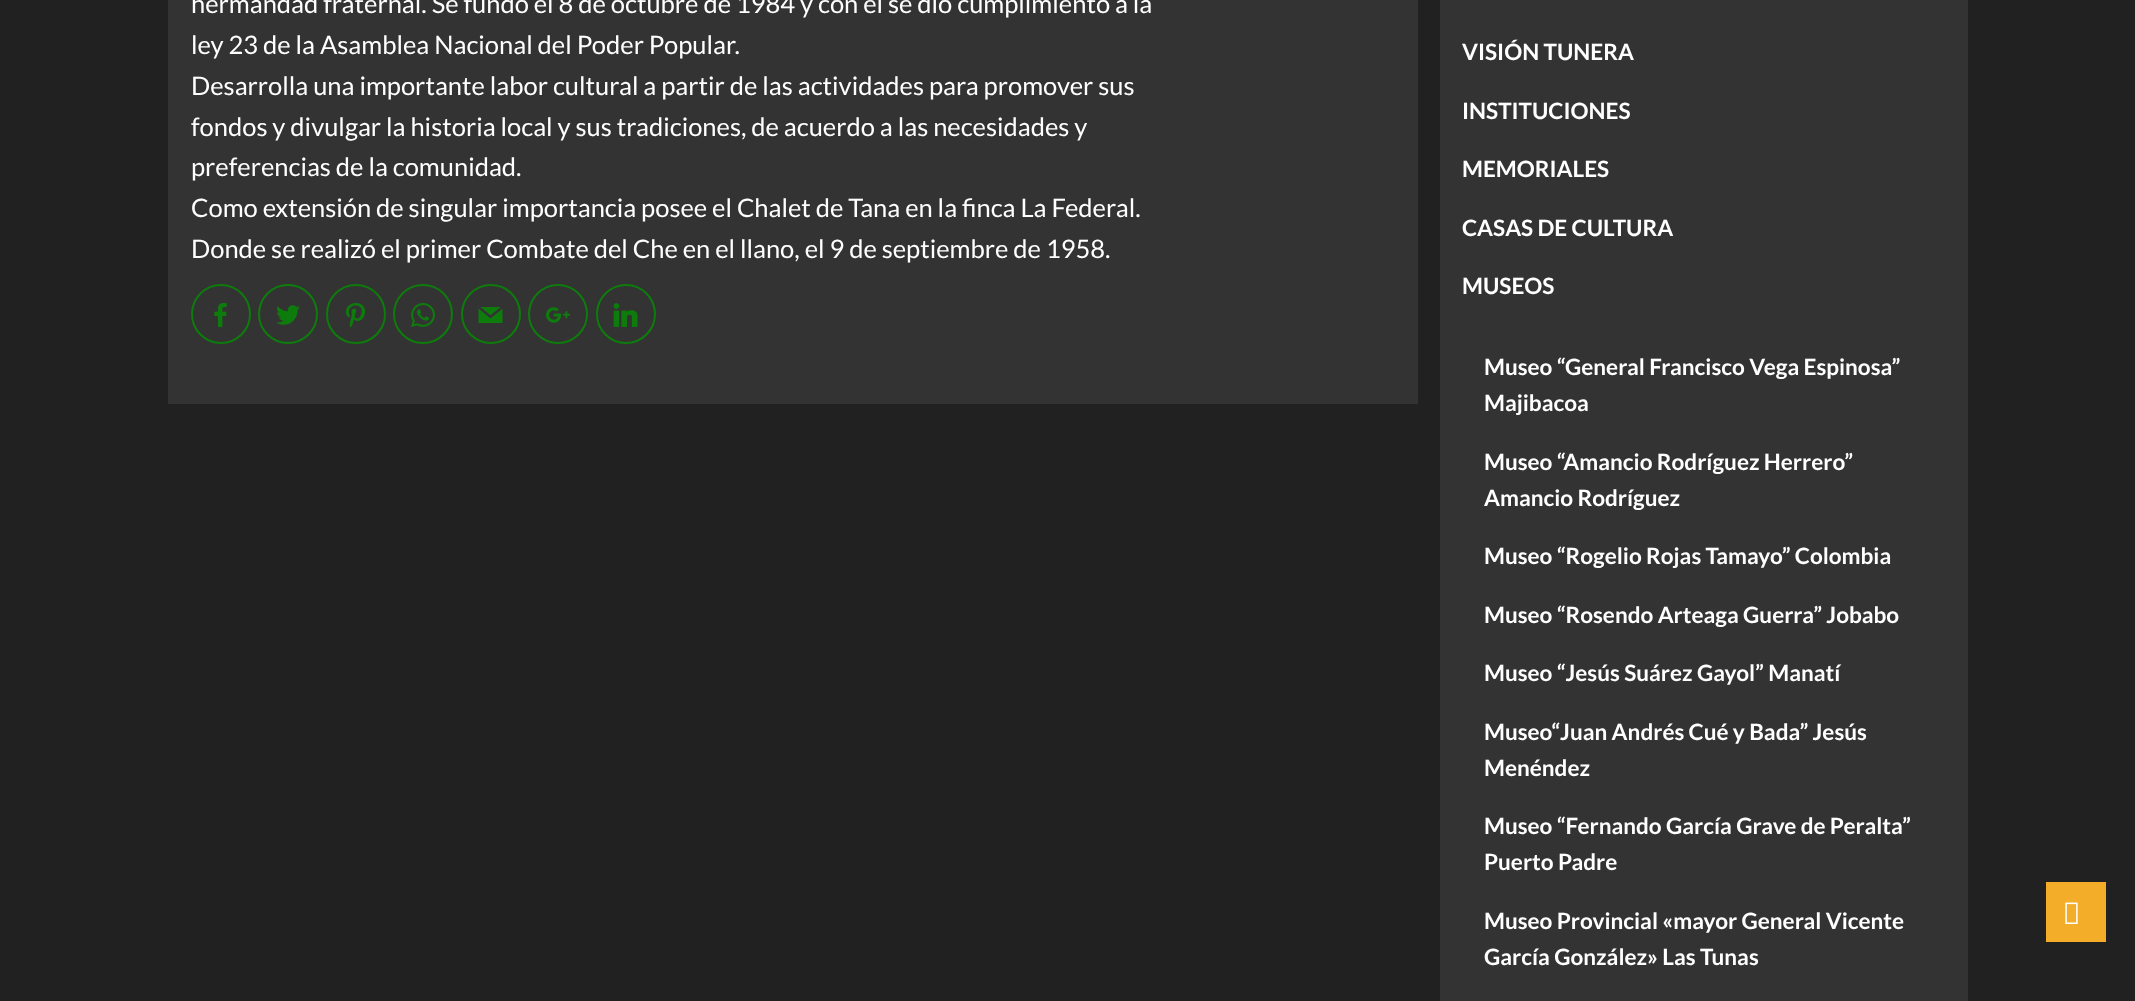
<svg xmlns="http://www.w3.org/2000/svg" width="2135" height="1001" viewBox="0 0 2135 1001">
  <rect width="100%" height="100%" fill="rgb(33,33,33)"/>
  <rect x="168" y="0" width="1250" height="404" fill="rgb(51,51,51)"/>
  <g font-family="Lato" font-size="25.5" fill="rgb(255,255,255)">
    <text>
      <tspan x="191" y="13">hermandad fraternal. Se fundó el 8 de octubre de 1984 y con el se dio cumplimiento a la</tspan>
      <tspan x="191" y="54">ley 23 de la Asamblea Nacional del Poder Popular.</tspan>
      <tspan x="191" y="95">Desarrolla una importante labor cultural a partir de las actividades para promover sus</tspan>
      <tspan x="191" y="136">fondos y divulgar la historia local y sus tradiciones, de acuerdo a las necesidades y</tspan>
      <tspan x="191" y="176">preferencias de la comunidad.</tspan>
      <tspan x="191" y="217">Como extensión de singular importancia posee el Chalet de Tana en la finca La Federal.</tspan>
      <tspan x="191" y="258">Donde se realizó el primer Combate del Che en el llano, el 9 de septiembre de 1958.</tspan>
    </text>
  </g>
  <circle cx="221" cy="314" r="29" fill="none" stroke="rgb(14,124,12)" stroke-width="2"/>
  <image x="214" y="303" width="13" height="24" href="pic1.png"/>
  <circle cx="288" cy="314" r="29" fill="none" stroke="rgb(14,124,12)" stroke-width="2"/>
  <image x="276" y="305" width="24" height="20" href="pic2.png"/>
  <circle cx="356" cy="314" r="29" fill="none" stroke="rgb(14,124,12)" stroke-width="2"/>
  <image x="345" y="303" width="21" height="24" href="pic3.png"/>
  <circle cx="423" cy="314" r="29" fill="none" stroke="rgb(14,124,12)" stroke-width="2"/>
  <image x="411" y="303" width="24" height="24" href="pic4.png"/>
  <circle cx="491" cy="314" r="29" fill="none" stroke="rgb(14,124,12)" stroke-width="2"/>
  <image x="478" y="307" width="25" height="16" href="pic5.png"/>
  <circle cx="558" cy="314" r="29" fill="none" stroke="rgb(14,124,12)" stroke-width="2"/>
  <image x="546" y="307" width="24" height="16" href="pic6.png"/>
  <circle cx="626" cy="314" r="29" fill="none" stroke="rgb(14,124,12)" stroke-width="2"/>
  <image x="613" y="303" width="25" height="24" href="pic7.png"/>
  <rect x="1440" y="0" width="528" height="1001" fill="rgb(51,51,51)"/>
  <g font-family="Lato" font-size="22.5" font-weight="bold" fill="rgb(255,255,255)">
    <text x="1462" y="60">VISIÓN TUNERA</text>
    <text x="1462" y="119">INSTITUCIONES</text>
    <text x="1462" y="177">MEMORIALES</text>
    <text x="1462" y="236">CASAS DE CULTURA</text>
    <text x="1462" y="294">MUSEOS</text>
    <text>
      <tspan x="1484" y="375">Museo “General Francisco Vega Espinosa”</tspan>
      <tspan x="1484" y="411">Majibacoa</tspan>
    </text>
    <text>
      <tspan x="1484" y="470">Museo “Amancio Rodríguez Herrero”</tspan>
      <tspan x="1484" y="506">Amancio Rodríguez</tspan>
    </text>
    <text x="1484" y="564">Museo “Rogelio Rojas Tamayo” Colombia</text>
    <text x="1484" y="623">Museo “Rosendo Arteaga Guerra” Jobabo</text>
    <text x="1484" y="681">Museo “Jesús Suárez Gayol” Manatí</text>
    <text>
      <tspan x="1484" y="740">Museo“Juan Andrés Cué y Bada” Jesús</tspan>
      <tspan x="1484" y="776">Menéndez</tspan>
    </text>
    <text>
      <tspan x="1484" y="834">Museo “Fernando García Grave de Peralta”</tspan>
      <tspan x="1484" y="870">Puerto Padre</tspan>
    </text>
    <text>
      <tspan x="1484" y="929">Museo Provincial «mayor General Vicente</tspan>
      <tspan x="1484" y="965">García González» Las Tunas</tspan>
    </text>
  </g>
  <rect x="2046" y="882" width="60" height="60" fill="rgb(243,173,41)"/>
  <image x="2065" y="902" width="13" height="22" href="pic8.png"/>
</svg>
